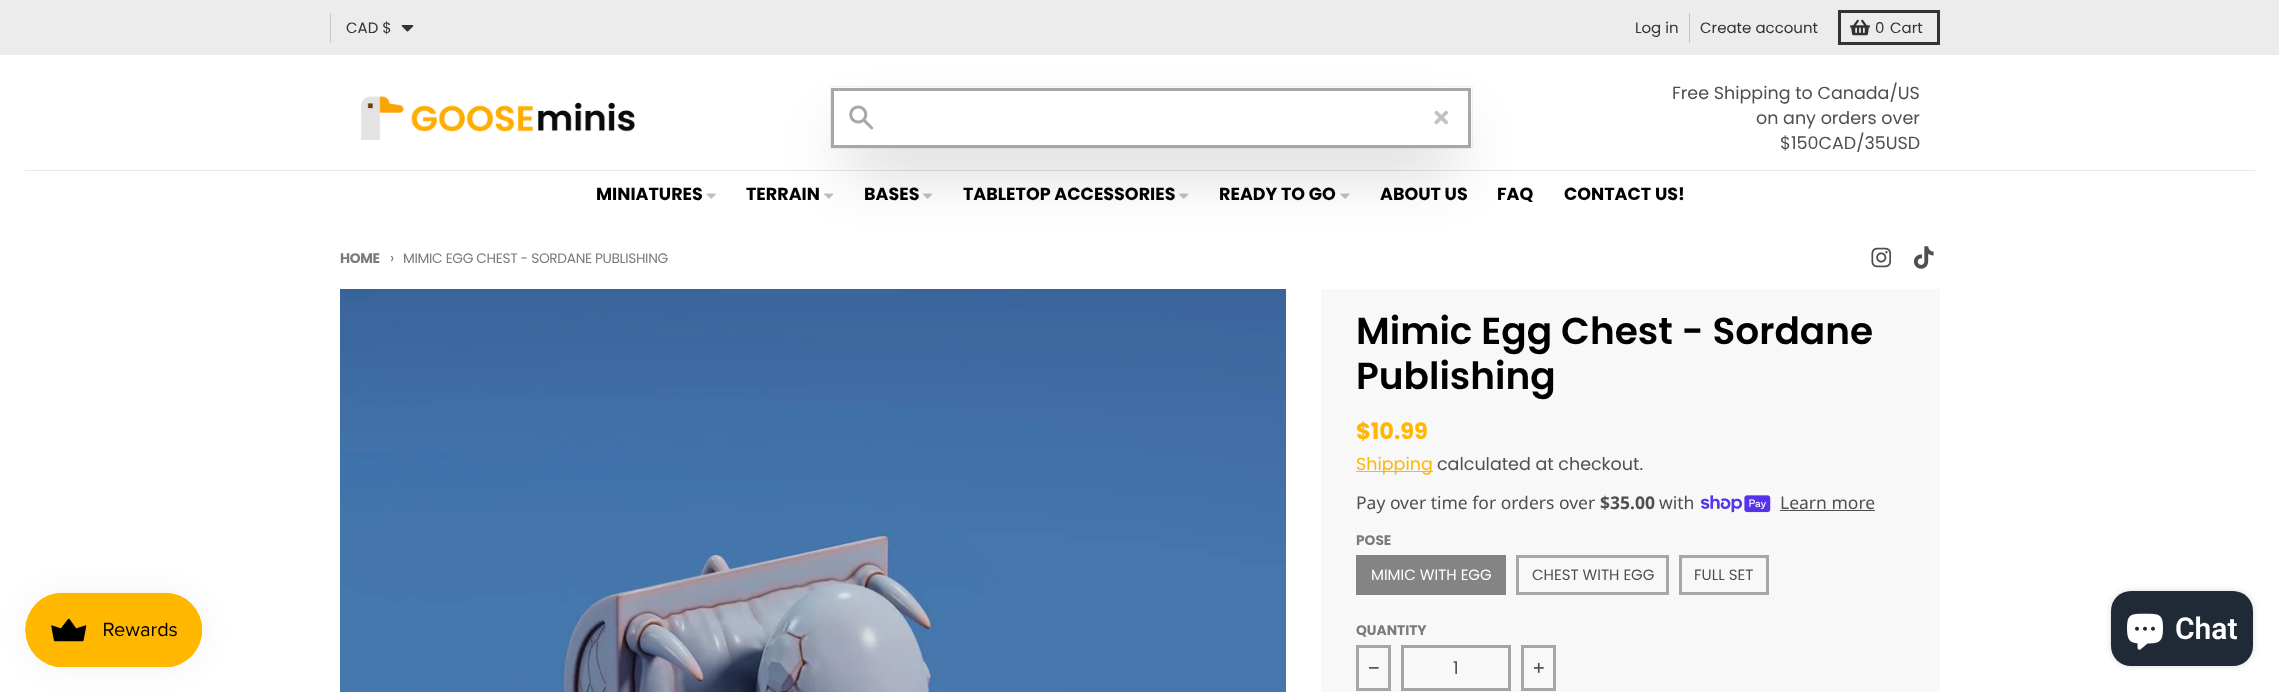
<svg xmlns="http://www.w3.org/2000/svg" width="2279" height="692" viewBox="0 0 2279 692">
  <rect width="100%" height="100%" fill="rgb(236,236,236)"/>
  <rect x="330" y="13" width="1" height="30" fill="rgb(199,199,199)"/>
  <text x="346" y="33" font-family="Poppins" font-size="15" fill="rgb(51,51,51)">CAD $</text>
  <image x="401" y="25" width="13" height="7" href="pic1.png"/>
  <text x="1635" y="33" font-family="Poppins" font-size="15" fill="rgb(51,51,51)">Log in</text>
  <rect x="1689" y="13" width="1" height="30" fill="rgb(199,199,199)"/>
  <text x="1700" y="33" font-family="Poppins" font-size="15" fill="rgb(51,51,51)">Create account</text>
  <rect x="1839.5" y="11.5" width="99" height="32" fill="none" stroke="rgb(51,51,51)" stroke-width="3"/>
  <image x="1850" y="19" width="20" height="17" href="pic2.png"/>
  <g font-family="Poppins" font-size="15" fill="rgb(51,51,51)">
    <text x="1875" y="33">0</text>
    <text x="1890" y="33">Cart</text>
  </g>
  <rect x="0" y="55" width="2279" height="637" fill="rgb(255,255,255)"/>
  <image x="361" y="96" width="274" height="44" href="pic3.png"/>
  <rect x="25" y="170" width="2230" height="1" fill="rgb(229,231,235)"/>
  <rect x="846" y="134" width="610" height="30" fill="rgba(0,0,0,0.25)" filter="blur(31px)"/>
  <rect x="830.5" y="86.5" width="642" height="62" fill="none" stroke="rgba(0,0,0,0.05)"/>
  <rect x="832.5" y="89.5" width="637" height="57" fill="rgb(255,255,255)" stroke="rgb(167,167,167)" stroke-width="3"/>
  <image x="849" y="105" width="25" height="25" href="pic4.png"/>
  <image x="1434" y="110" width="14" height="15" href="pic5.png"/>
  <g font-family="Poppins" font-size="17.5" fill="rgb(79,79,79)">
    <text x="1672" y="99">Free Shipping to Canada/US</text>
    <text x="1756" y="124">on any orders over</text>
    <text x="1780" y="149">$150CAD/35USD</text>
  </g>
  <text x="596" y="200" font-family="Poppins" font-size="17.5" font-weight="bold" fill="rgb(0,0,0)">MINIATURES</text>
  <image x="706" y="193" width="10" height="6" href="pic6.png"/>
  <text x="746" y="200" font-family="Poppins" font-size="17.5" font-weight="bold" fill="rgb(0,0,0)">TERRAIN</text>
  <image x="824" y="193" width="10" height="6" href="pic7.png"/>
  <text x="864" y="200" font-family="Poppins" font-size="17.5" font-weight="bold" fill="rgb(0,0,0)">BASES</text>
  <image x="923" y="193" width="9" height="6" href="pic8.png"/>
  <text x="963" y="200" font-family="Poppins" font-size="17.5" font-weight="bold" fill="rgb(0,0,0)">TABLETOP ACCESSORIES</text>
  <image x="1179" y="193" width="10" height="6" href="pic9.png"/>
  <text x="1219" y="200" font-family="Poppins" font-size="17.5" font-weight="bold" fill="rgb(0,0,0)">READY TO GO</text>
  <image x="1340" y="193" width="10" height="6" href="pic10.png"/>
  <g font-family="Poppins" font-size="17.5" font-weight="bold" fill="rgb(0,0,0)">
    <text x="1380" y="200">ABOUT US</text>
    <text x="1497" y="200">FAQ</text>
    <text x="1564" y="200">CONTACT US!</text>
  </g>
  <rect x="25" y="593" width="178" height="75" rx="37.5" fill="rgba(0,0,0,0.05)" filter="blur(15.5px)"/>
  <image x="25" y="592" width="178" height="76" href="pic11.png"/>
  <text x="340" y="263" font-family="Poppins" font-size="13.75" font-weight="bold" letter-spacing="-0.35" fill="rgb(123,123,123)">HOME</text>
  <text x="390" y="263" font-family="Poppins" font-size="15" letter-spacing="-0.35" fill="rgb(123,123,123)">›</text>
  <text x="403" y="263" font-family="Poppins" font-size="13.75" letter-spacing="-0.35" fill="rgb(123,123,123)">MIMIC EGG CHEST - SORDANE PUBLISHING</text>
  <image x="1871" y="247" width="21" height="21" href="pic12.png"/>
  <image x="1913" y="246" width="21" height="23" href="pic13.png"/>
  <image x="340" y="289" width="946" height="403" href="pic14.png"/>
  <rect x="1321" y="289" width="619" height="403" fill="rgb(248,248,248)"/>
  <g font-family="Poppins" font-size="37.5" font-weight="600" fill="rgb(0,0,0)">
    <text>
      <tspan x="1356" y="344">Mimic Egg Chest - Sordane</tspan>
      <tspan x="1356" y="389">Publishing</tspan>
    </text>
  </g>
  <text x="1356" y="439" font-family="Poppins" font-size="22.5" font-weight="bold" fill="rgb(255,183,0)">$10.99</text>
  <rect x="1356" y="471" width="77" height="1" fill="rgb(255,183,0)"/>
  <text x="1356" y="470" font-family="Poppins" font-size="17.5" fill="rgb(255,183,0)">Shipping</text>
  <text x="1437" y="470" font-family="Poppins" font-size="17.5" fill="rgb(79,79,79)">calculated at checkout.</text>
  <text x="1356" y="509" font-family="Noto Sans" font-size="17.5" fill="rgb(79,79,79)">Pay over time for orders over</text>
  <text x="1600" y="509" font-family="Noto Sans" font-size="17.5" font-weight="bold" fill="rgb(79,79,79)">$35.00</text>
  <text x="1659" y="509" font-family="Noto Sans" font-size="17.5" fill="rgb(79,79,79)">with</text>
  <image x="1701" y="495" width="70" height="18" href="pic15.png"/>
  <text x="1780" y="509" font-family="Noto Sans" font-size="17.5" fill="rgb(79,79,79)">Learn more</text>
  <rect x="1780" y="510" width="95" height="1" fill="rgb(79,79,79)"/>
  <text x="1356" y="545" font-family="Poppins" font-size="13.75" font-weight="bold" fill="rgb(123,123,123)">POSE</text>
  <rect x="1356" y="555" width="150" height="40" fill="rgb(132,132,132)"/>
  <text x="1371" y="580" font-family="Poppins" font-size="15" fill="rgb(255,255,255)">MIMIC WITH EGG</text>
  <rect x="1517.5" y="556.5" width="150" height="37" fill="none" stroke="rgb(167,167,167)" stroke-width="3"/>
  <text x="1532" y="580" font-family="Poppins" font-size="15" fill="rgb(79,79,79)">CHEST WITH EGG</text>
  <rect x="1680.5" y="556.5" width="87" height="37" fill="none" stroke="rgb(167,167,167)" stroke-width="3"/>
  <text x="1694" y="580" font-family="Poppins" font-size="15" fill="rgb(79,79,79)">FULL SET</text>
  <text x="1356" y="635" font-family="Poppins" font-size="13.75" font-weight="bold" fill="rgb(123,123,123)">QUANTITY</text>
  <rect x="1357.5" y="646.5" width="32" height="43" fill="none" stroke="rgb(167,167,167)" stroke-width="3"/>
  <image x="1369" y="667" width="10" height="2" href="pic16.png"/>
  <rect x="1402.5" y="646.5" width="107" height="43" fill="none" stroke="rgb(164,164,164)" stroke-width="3"/>
  <text x="1453" y="674" font-family="Poppins" font-size="17.5" fill="rgb(79,79,79)">1</text>
  <rect x="1522.5" y="646.5" width="32" height="43" fill="none" stroke="rgb(167,167,167)" stroke-width="3"/>
  <image x="1534" y="662" width="10" height="11" href="pic17.png"/>
  <rect x="2111" y="591" width="142" height="75" rx="20" fill="rgba(0,0,0,0.15)" filter="blur(3px)"/>
  <rect x="2111" y="591" width="142" height="75" rx="20" fill="rgb(32,42,54)"/>
  <image x="2127" y="613" width="36" height="37" href="pic18.png"/>
  <text x="2175" y="639" font-family="Roboto" font-size="30" font-weight="600" fill="rgb(255,255,255)">Chat</text>
</svg>
